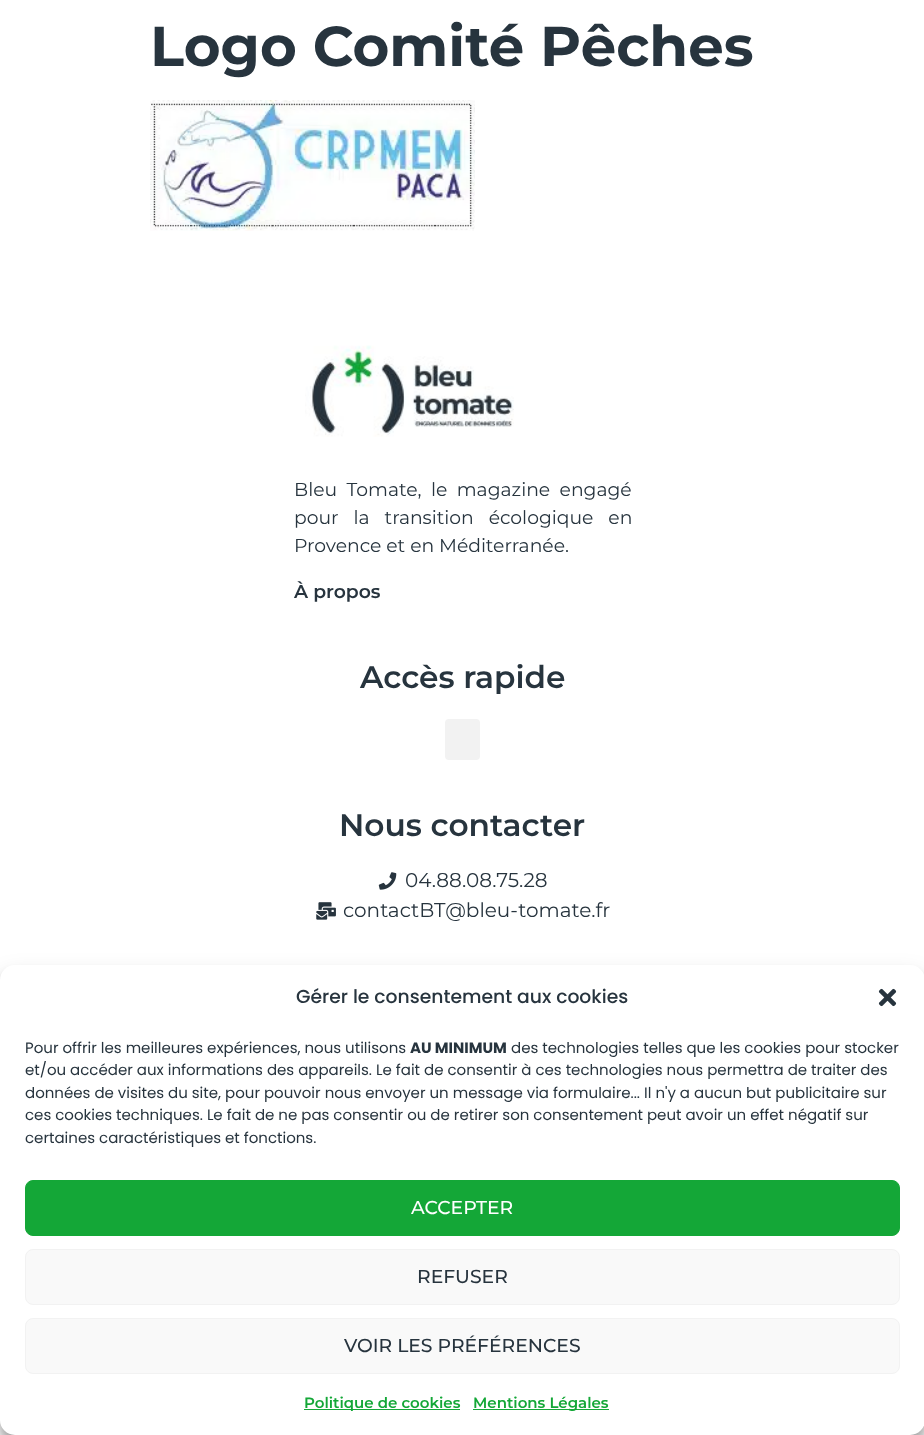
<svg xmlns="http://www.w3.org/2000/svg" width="924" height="1435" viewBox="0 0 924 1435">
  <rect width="100%" height="100%" fill="rgb(255,255,255)"/>
  <text x="150" y="66" font-family="Montserrat" font-size="56.25" font-weight="bold" fill="rgb(39,52,62)">Logo Comité Pêches</text>
  <image x="150" y="100" width="325" height="131" href="pic1.png"/>
  <image x="305" y="345" width="209" height="92" href="pic2.png"/>
  <g font-family="Montserrat" font-size="18.75" fill="rgb(39,52,62)">
    <text>
      <tspan x="294" y="496" word-spacing="4.5">Bleu Tomate, le magazine engagé</tspan>
      <tspan x="294" y="524" word-spacing="10">pour la transition écologique en</tspan>
      <tspan x="294" y="552">Provence et en Méditerranée.</tspan>
    </text>
  </g>
  <text x="294" y="598" font-family="Montserrat" font-size="18.75" font-weight="600" fill="rgb(39,52,62)">À propos</text>
  <text x="360" y="688" font-family="Montserrat" font-size="31.25" font-weight="600" fill="rgb(39,52,62)">Accès rapide</text>
  <rect x="445" y="719" width="35" height="41" rx="4" fill="rgb(242,242,242)"/>
  <text x="339" y="836" font-family="Montserrat" font-size="31.25" font-weight="600" fill="rgb(39,52,62)">Nous contacter</text>
  <image x="378" y="872" width="19" height="18" href="pic3.png"/>
  <text x="405" y="887" font-family="Montserrat" font-size="20" fill="rgb(39,52,62)">04.88.08.75.28</text>
  <image x="316" y="902" width="20" height="18" href="pic4.png"/>
  <text x="343" y="917" font-family="Montserrat" font-size="20" fill="rgb(39,52,62)">contactBT@bleu-tomate.fr</text>
  <rect x="0" y="973" width="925" height="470" rx="15" fill="rgba(0,0,0,0.23)" filter="blur(4px)"/>
  <rect x="0" y="978" width="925" height="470" rx="15" fill="rgba(0,0,0,0.19)" filter="blur(12.5px)"/>
  <rect x="0" y="965" width="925" height="470" rx="15" fill="rgb(255,255,255)"/>
  <text x="296" y="1003" font-family="Poppins" font-size="18.75" font-weight="500" fill="rgb(39,52,62)">Gérer le consentement aux cookies</text>
  <image x="878" y="988" width="19" height="19" href="pic5.png"/>
  <text x="25" y="1053" font-family="Poppins" font-size="15" fill="rgb(39,52,62)">Pour offrir les meilleures expériences, nous utilisons</text>
  <text x="410" y="1053" font-family="Poppins" font-size="15" font-weight="bold" fill="rgb(39,52,62)">AU MINIMUM</text>
  <g font-family="Poppins" font-size="15" fill="rgb(39,52,62)">
    <text x="511" y="1053">des technologies telles que les cookies pour stocker</text>
    <text>
      <tspan x="25" y="1075">et/ou accéder aux informations des appareils. Le fait de consentir à ces technologies nous permettra de traiter des</tspan>
      <tspan x="25" y="1098">données de visites du site, pour pouvoir nous envoyer un message via formulaire... Il n'y a aucun but publicitaire sur</tspan>
      <tspan x="25" y="1120">ces cookies techniques. Le fait de ne pas consentir ou de retirer son consentement peut avoir un effet négatif sur</tspan>
      <tspan x="25" y="1143">certaines caractéristiques et fonctions.</tspan>
    </text>
  </g>
  <rect x="25.5" y="1180.5" width="874" height="55" rx="7.5" fill="rgb(20,167,55)" stroke="rgb(20,167,55)"/>
  <text x="411" y="1214" font-family="Montserrat" font-size="18.75" font-weight="500" fill="rgb(255,255,255)">ACCEPTER</text>
  <rect x="25.5" y="1249.5" width="874" height="55" rx="7.5" fill="rgb(249,249,249)" stroke="rgb(242,242,242)"/>
  <text x="417" y="1283" font-family="Montserrat" font-size="18.75" font-weight="500" fill="rgb(39,52,62)">REFUSER</text>
  <rect x="25.5" y="1318.5" width="874" height="55" rx="7.5" fill="rgb(249,249,249)" stroke="rgb(242,242,242)"/>
  <text x="344" y="1352" font-family="Montserrat" font-size="18.75" font-weight="500" fill="rgb(39,52,62)">VOIR LES PRÉFÉRENCES</text>
  <rect x="304" y="1409" width="156" height="1" fill="rgb(20,167,55)"/>
  <text x="304" y="1408" font-family="Montserrat" font-size="15" font-weight="600" fill="rgb(20,167,55)">Politique de cookies</text>
  <rect x="473" y="1409" width="136" height="1" fill="rgb(20,167,55)"/>
  <text x="473" y="1408" font-family="Montserrat" font-size="15" font-weight="600" fill="rgb(20,167,55)">Mentions Légales</text>
</svg>
